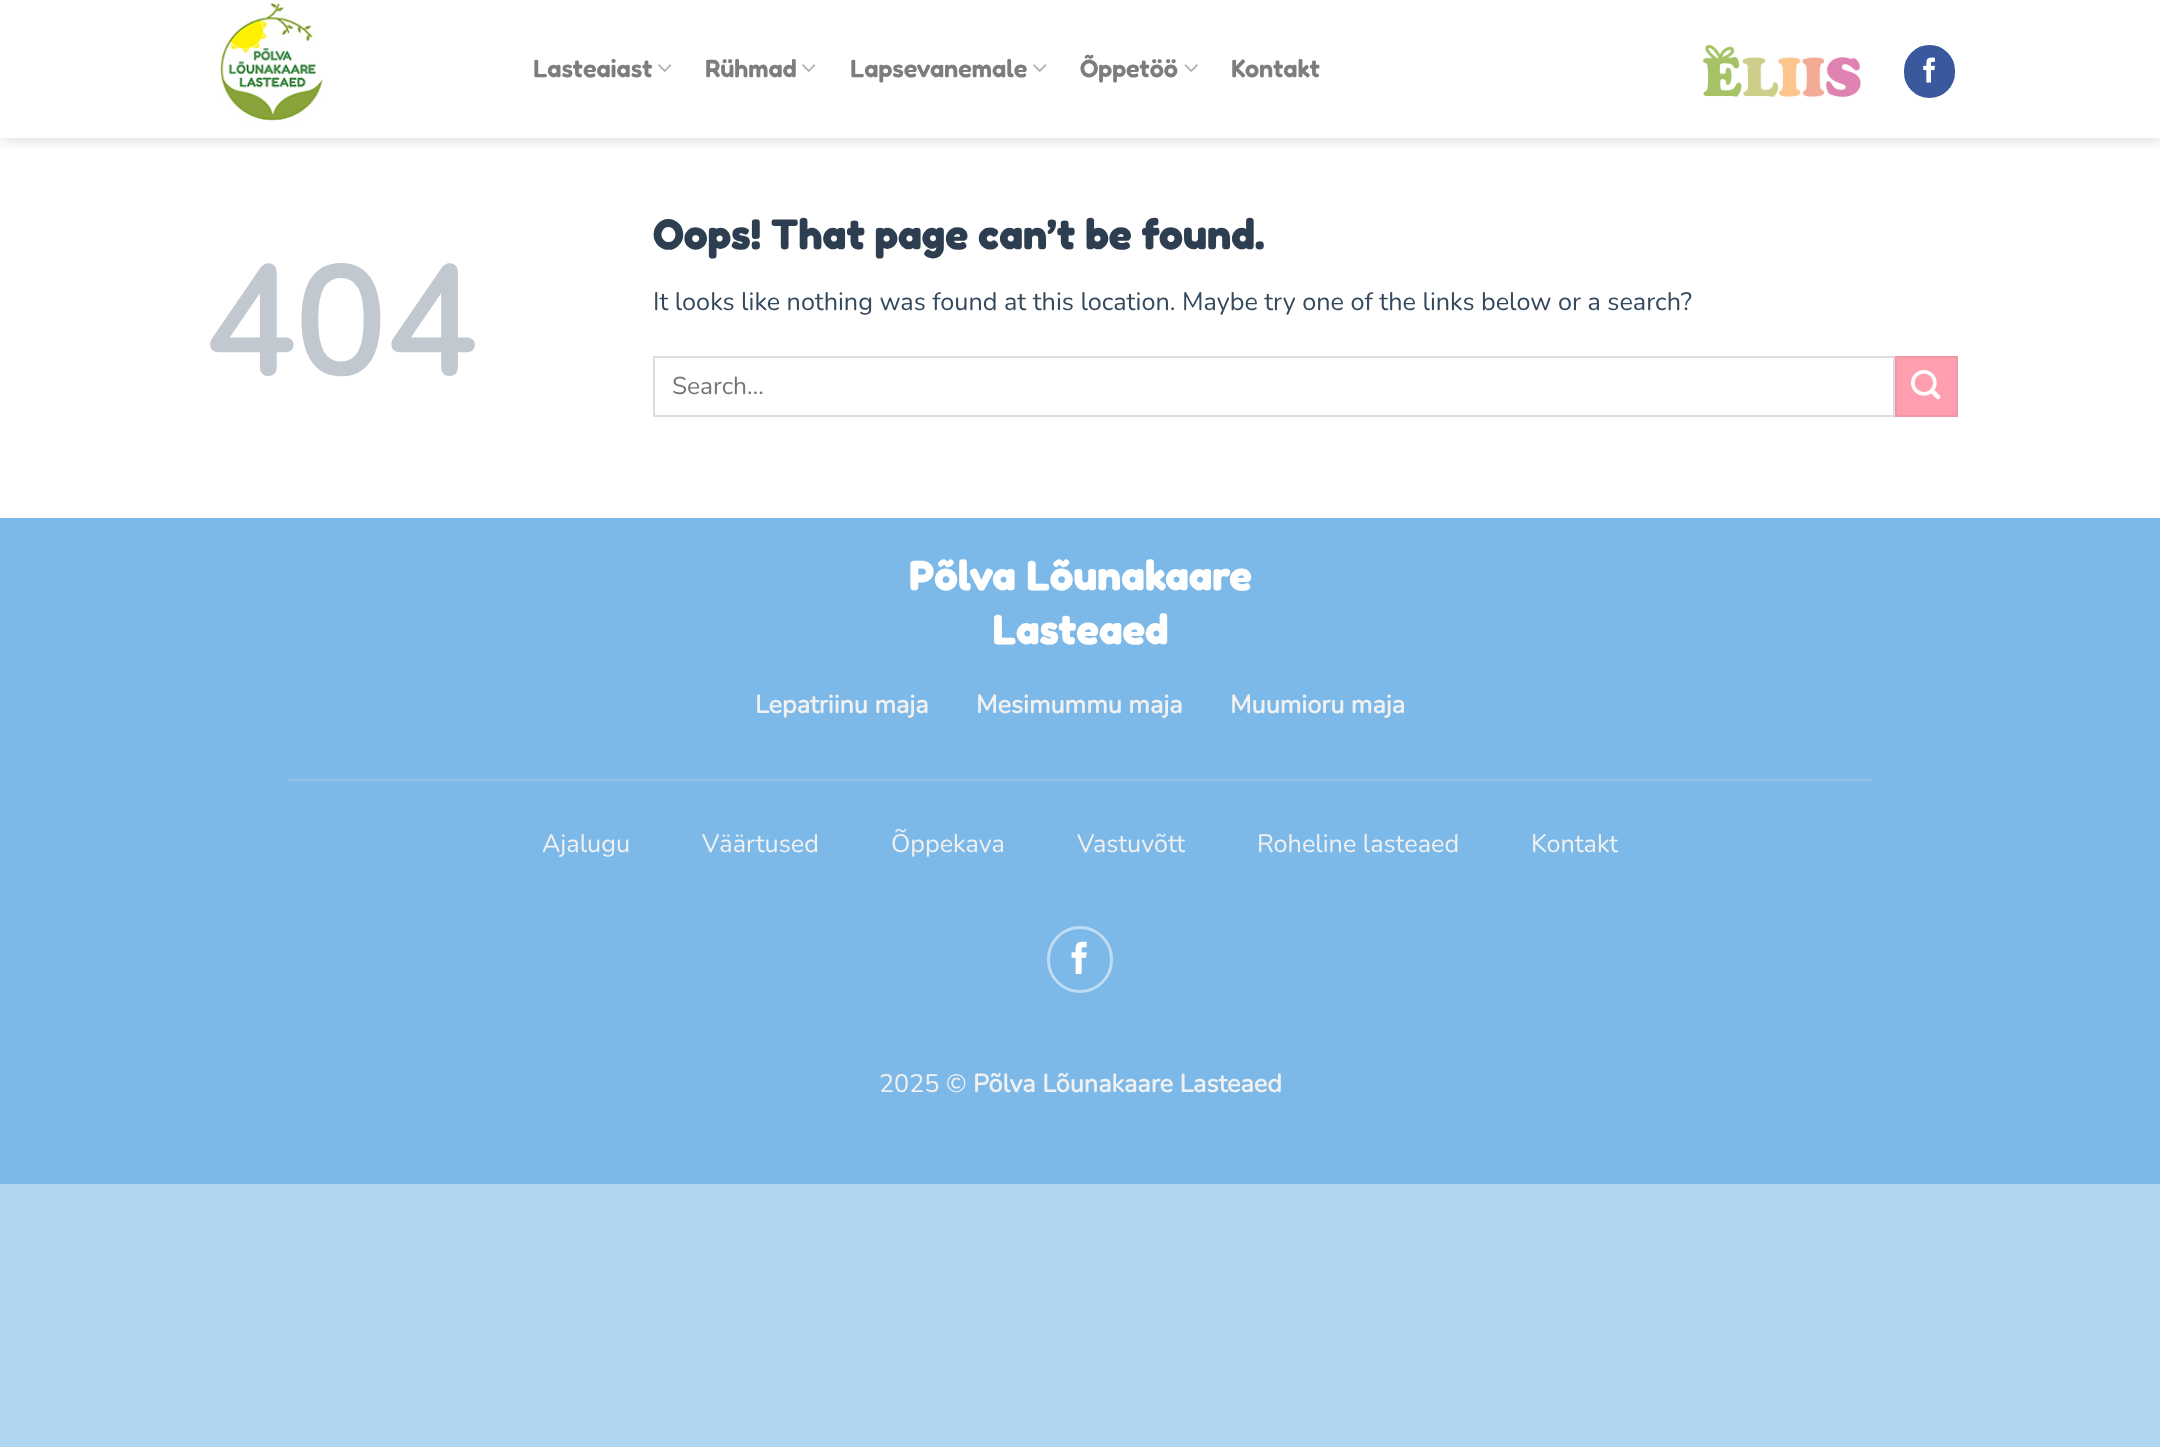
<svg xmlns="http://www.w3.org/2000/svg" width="2160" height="1447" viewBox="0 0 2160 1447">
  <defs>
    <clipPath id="clip1"><rect x="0" y="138" width="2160" height="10"/></clipPath>
  </defs>
  <rect width="100%" height="100%" fill="rgb(174,214,241)"/>
  <rect x="0" y="0" width="2160" height="518" fill="rgb(255,255,255)"/>
  <g clip-path="url(#clip1)">
    <rect x="2" y="2" width="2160" height="138" fill="rgba(0,0,0,0.15)" filter="blur(7.5px)"/>
  </g>
  <image x="220" y="3" width="104" height="118" href="pic1.png"/>
  <text x="533" y="77" font-family="Fredoka" font-size="25.2" font-weight="600" fill="rgb(125,125,125)">Lasteaiast</text>
  <image x="658" y="64" width="14" height="8" href="pic2.png"/>
  <text x="705" y="77" font-family="Fredoka" font-size="25.2" font-weight="600" fill="rgb(125,125,125)">Rühmad</text>
  <image x="802" y="64" width="14" height="8" href="pic2.png"/>
  <text x="850" y="77" font-family="Fredoka" font-size="25.2" font-weight="600" fill="rgb(125,125,125)">Lapsevanemale</text>
  <image x="1033" y="64" width="14" height="8" href="pic2.png"/>
  <text x="1080" y="77" font-family="Fredoka" font-size="25.2" font-weight="600" fill="rgb(125,125,125)">Õppetöö</text>
  <image x="1184" y="64" width="14" height="8" href="pic3.png"/>
  <text x="1231" y="77" font-family="Fredoka" font-size="25.2" font-weight="600" fill="rgb(125,125,125)">Kontakt</text>
  <image x="1703" y="45" width="158" height="52" href="pic4.png"/>
  <rect x="1905" y="46" width="49" height="51" rx="24.5" fill="rgb(58,88,157)" stroke="rgb(58,88,157)" stroke-width="2"/>
  <image x="1923" y="57" width="12" height="26" href="pic5.png"/>
  <text x="203" y="375" font-family="Nunito" font-size="151" font-weight="bold" fill="rgb(194,200,207)">404</text>
  <text x="653" y="249" font-family="Fredoka" font-size="42.8" font-weight="bold" fill="rgb(44,62,80)">Oops! That page can’t be found.</text>
  <text x="653" y="310" font-family="Nunito" font-size="25.2" font-weight="200" fill="rgb(52,73,94)">It looks like nothing was found at this location. Maybe try one of the links below or a search?</text>
  <rect x="654" y="357" width="1240" height="59" fill="none" stroke="rgb(221,221,221)" stroke-width="2"/>
  <text x="672" y="394" font-family="Nunito" font-size="24.5" font-weight="200" fill="rgb(117,117,117)">Search…</text>
  <rect x="1896" y="357" width="61" height="59" fill="rgb(255,158,175)" stroke="rgb(242,150,166)" stroke-width="2"/>
  <image x="1911" y="370" width="30" height="30" href="pic6.png"/>
  <rect x="0" y="518" width="2160" height="666" fill="rgb(124,185,232)"/>
  <g font-family="Fredoka" font-size="42.25" font-weight="bold" fill="rgb(255,255,255)">
    <text x="909" y="590">Põlva Lõunakaare</text>
    <text x="992" y="644">Lasteaed</text>
  </g>
  <g font-family="Nunito" font-size="25.2" font-weight="bold" fill="rgb(241,241,241)">
    <text x="755" y="713">Lepatriinu maja</text>
    <text x="976" y="713">Mesimummu maja</text>
    <text x="1230" y="713">Muumioru maja</text>
  </g>
  <rect x="288" y="779" width="1584" height="2" fill="rgb(144,196,235)"/>
  <g font-family="Nunito" font-size="25.2" font-weight="200" fill="rgb(241,241,241)">
    <text x="542" y="852">Ajalugu</text>
    <text x="702" y="852">Väärtused</text>
    <text x="891" y="852">Õppekava</text>
    <text x="1077" y="852">Vastuvõtt</text>
    <text x="1257" y="852">Roheline lasteaed</text>
    <text x="1531" y="852">Kontakt</text>
  </g>
  <rect x="1048.5" y="927.5" width="63" height="64" rx="31.5" fill="none" stroke="rgb(190,220,244)" stroke-width="3"/>
  <image x="1071" y="941" width="16" height="33" href="pic7.png"/>
  <text x="879" y="1092" font-family="Nunito" font-size="25.2" font-weight="200" fill="rgb(241,241,241)">2025 ©</text>
  <text x="973" y="1092" font-family="Nunito" font-size="25.2" font-weight="bold" fill="rgb(241,241,241)">Põlva Lõunakaare Lasteaed</text>
</svg>
